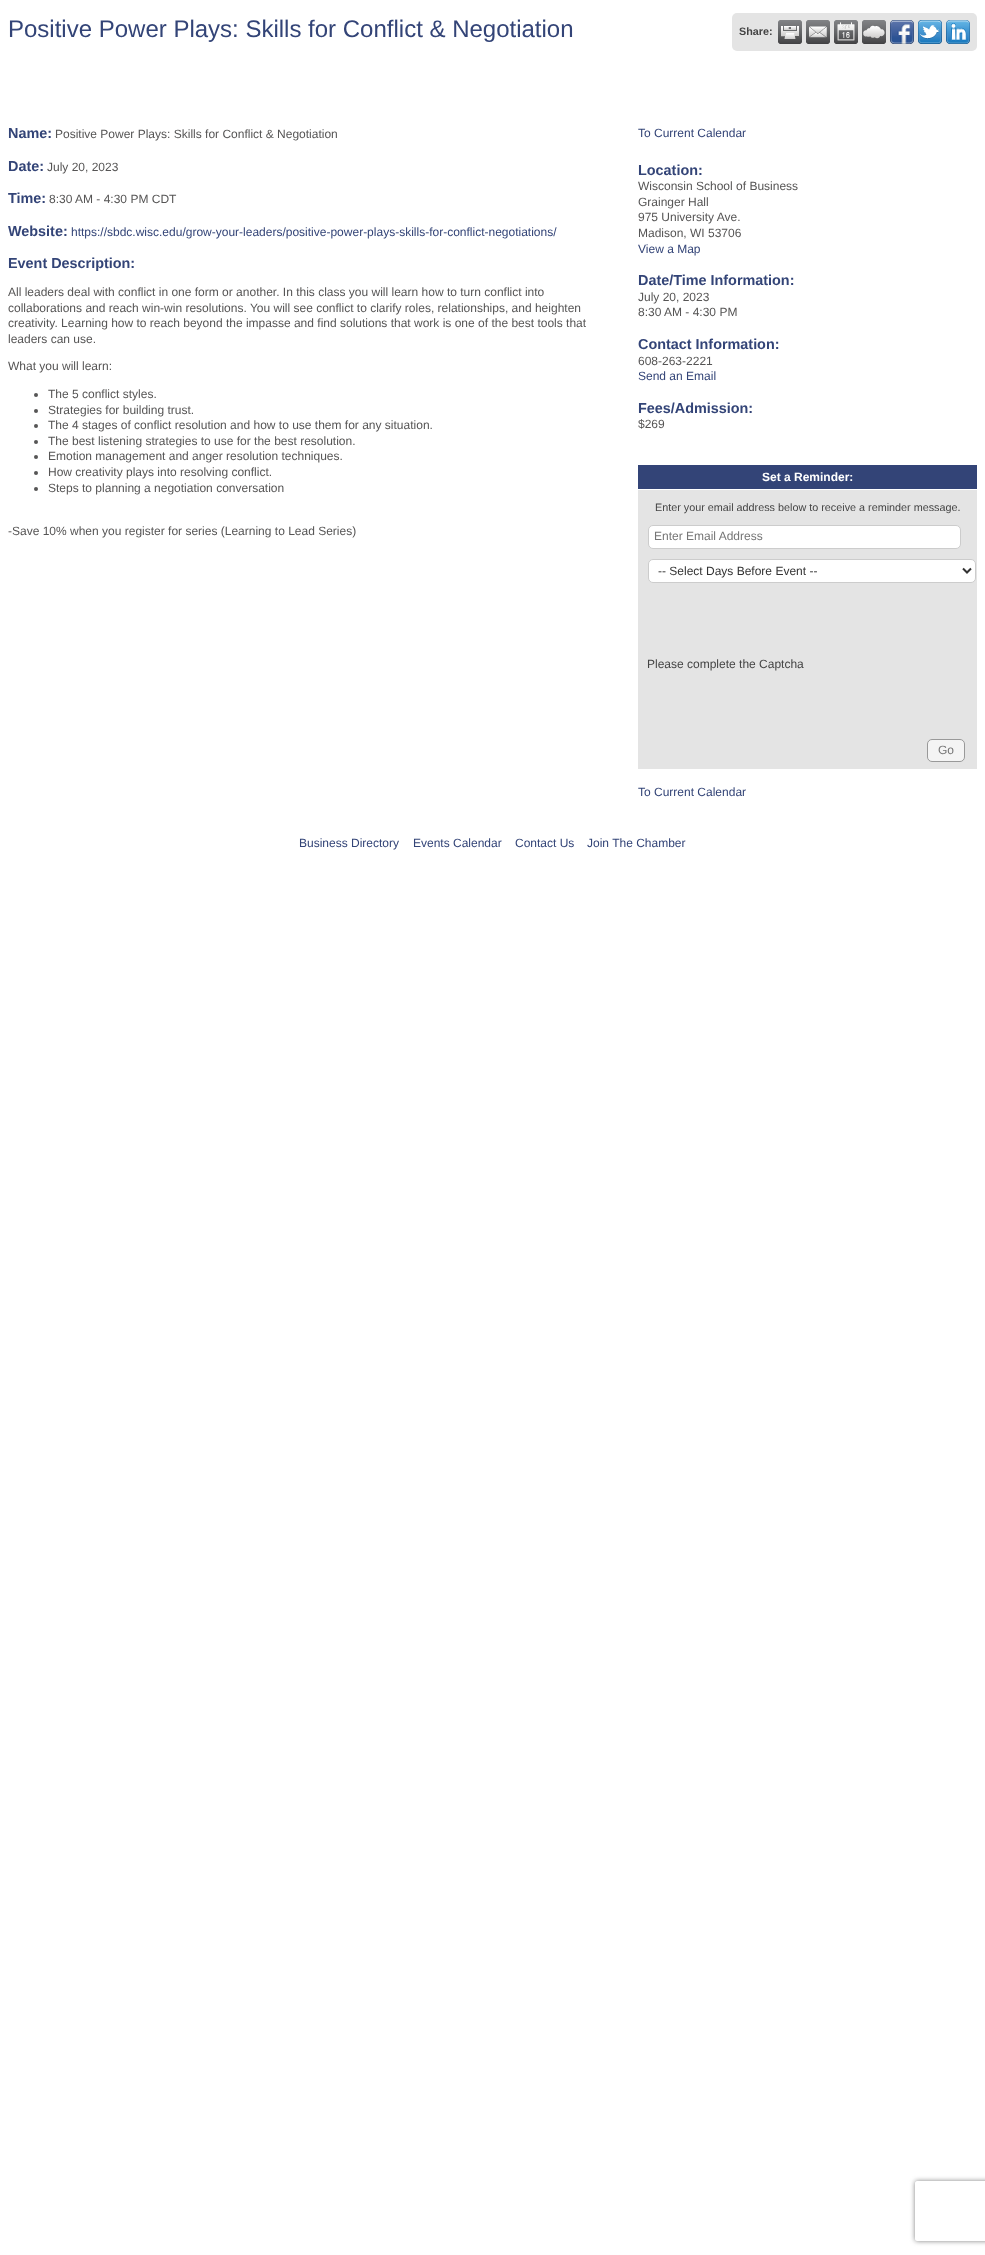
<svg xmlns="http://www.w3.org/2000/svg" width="985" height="2255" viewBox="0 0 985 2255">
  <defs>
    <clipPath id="clip1"><path d="M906 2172H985V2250H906ZM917 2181H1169C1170 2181 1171 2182 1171 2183V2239C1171 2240 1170 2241 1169 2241H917C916 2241 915 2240 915 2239V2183C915 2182 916 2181 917 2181Z" clip-rule="evenodd"/></clipPath>
  </defs>
  <rect width="100%" height="100%" fill="rgb(255,255,255)"/>
  <text x="8" y="37" font-family="Liberation Sans" font-size="24" fill="rgb(51,68,119)">Positive Power Plays: Skills for Conflict &amp; Negotiation</text>
  <rect x="732" y="13" width="245" height="38" rx="5" fill="rgb(228,228,228)"/>
  <text x="739" y="35" font-family="Liberation Sans" font-size="10.8" font-weight="bold" fill="rgb(68,68,68)">Share:</text>
  <image x="778" y="20" width="24" height="24" href="pic1.png"/>
  <image x="806" y="20" width="24" height="24" href="pic2.png"/>
  <image x="834" y="20" width="24" height="24" href="pic3.png"/>
  <image x="862" y="20" width="24" height="24" href="pic4.png"/>
  <image x="890" y="20" width="24" height="24" href="pic5.png"/>
  <image x="918" y="20" width="24" height="24" href="pic6.png"/>
  <image x="946" y="20" width="24" height="24" href="pic7.png"/>
  <text x="8" y="138" font-family="Liberation Sans" font-size="14.4" font-weight="bold" fill="rgb(51,68,119)">Name:</text>
  <text x="55" y="138" font-family="Liberation Sans" font-size="12" fill="rgb(86,85,85)">Positive Power Plays: Skills for Conflict &amp; Negotiation</text>
  <text x="8" y="171" font-family="Liberation Sans" font-size="14.4" font-weight="bold" fill="rgb(51,68,119)">Date:</text>
  <text x="47" y="171" font-family="Liberation Sans" font-size="12" fill="rgb(86,85,85)">July 20, 2023</text>
  <text x="8" y="203" font-family="Liberation Sans" font-size="14.4" font-weight="bold" fill="rgb(51,68,119)">Time:</text>
  <text x="49" y="203" font-family="Liberation Sans" font-size="12" fill="rgb(86,85,85)">8:30 AM - 4:30 PM CDT</text>
  <text x="8" y="236" font-family="Liberation Sans" font-size="14.4" font-weight="bold" fill="rgb(51,68,119)">Website:</text>
  <text x="71" y="236" font-family="Liberation Sans" font-size="12" fill="rgb(51,68,119)">https://sbdc.wisc.edu/grow-your-leaders/positive-power-plays-skills-for-conflict-negotiations/</text>
  <text x="8" y="268" font-family="Liberation Sans" font-size="14.4" font-weight="bold" fill="rgb(51,68,119)">Event Description:</text>
  <g font-family="Liberation Sans" font-size="12" fill="rgb(86,85,85)">
    <text>
      <tspan x="8" y="296">All leaders deal with conflict in one form or another. In this class you will learn how to turn conflict into</tspan>
      <tspan x="8" y="312">collaborations and reach win-win resolutions. You will see conflict to clarify roles, relationships, and heighten</tspan>
      <tspan x="8" y="327">creativity. Learning how to reach beyond the impasse and find solutions that work is one of the best tools that</tspan>
      <tspan x="8" y="343">leaders can use.</tspan>
    </text>
    <text x="8" y="370">What you will learn:</text>
  </g>
  <circle cx="36" cy="395" r="2" fill="rgb(86,85,85)"/>
  <text x="48" y="398" font-family="Liberation Sans" font-size="12" fill="rgb(86,85,85)">The 5 conflict styles.</text>
  <circle cx="36" cy="411" r="2" fill="rgb(86,85,85)"/>
  <text x="48" y="414" font-family="Liberation Sans" font-size="12" fill="rgb(86,85,85)">Strategies for building trust.</text>
  <circle cx="36" cy="426" r="2" fill="rgb(86,85,85)"/>
  <text x="48" y="429" font-family="Liberation Sans" font-size="12" fill="rgb(86,85,85)">The 4 stages of conflict resolution and how to use them for any situation.</text>
  <circle cx="36" cy="442" r="2" fill="rgb(86,85,85)"/>
  <text x="48" y="445" font-family="Liberation Sans" font-size="12" fill="rgb(86,85,85)">The best listening strategies to use for the best resolution.</text>
  <circle cx="36" cy="457" r="2" fill="rgb(86,85,85)"/>
  <text x="48" y="460" font-family="Liberation Sans" font-size="12" fill="rgb(86,85,85)">Emotion management and anger resolution techniques.</text>
  <circle cx="36" cy="473" r="2" fill="rgb(86,85,85)"/>
  <text x="48" y="476" font-family="Liberation Sans" font-size="12" fill="rgb(86,85,85)">How creativity plays into resolving conflict.</text>
  <circle cx="36" cy="489" r="2" fill="rgb(86,85,85)"/>
  <g font-family="Liberation Sans" font-size="12" fill="rgb(86,85,85)">
    <text x="48" y="492">Steps to planning a negotiation conversation</text>
    <text x="8" y="535">-Save 10% when you register for series (Learning to Lead Series)</text>
  </g>
  <text x="638" y="137" font-family="Liberation Sans" font-size="12" fill="rgb(51,68,119)">To Current Calendar</text>
  <text x="638" y="175" font-family="Liberation Sans" font-size="14.4" font-weight="bold" fill="rgb(51,68,119)">Location:</text>
  <g font-family="Liberation Sans" font-size="12" fill="rgb(86,85,85)">
    <text>
      <tspan x="638" y="190">Wisconsin School of Business</tspan>
      <tspan x="638" y="206">Grainger Hall</tspan>
      <tspan x="638" y="221">975 University Ave.</tspan>
      <tspan x="638" y="237">Madison, WI 53706</tspan>
    </text>
  </g>
  <text x="638" y="253" font-family="Liberation Sans" font-size="12" fill="rgb(51,68,119)">View a Map</text>
  <text x="638" y="285" font-family="Liberation Sans" font-size="14.4" font-weight="bold" fill="rgb(51,68,119)">Date/Time Information:</text>
  <g font-family="Liberation Sans" font-size="12" fill="rgb(86,85,85)">
    <text>
      <tspan x="638" y="301">July 20, 2023</tspan>
      <tspan x="638" y="316">8:30 AM - 4:30 PM</tspan>
    </text>
  </g>
  <text x="638" y="349" font-family="Liberation Sans" font-size="14.4" font-weight="bold" fill="rgb(51,68,119)">Contact Information:</text>
  <text x="638" y="365" font-family="Liberation Sans" font-size="12" fill="rgb(86,85,85)">608-263-2221</text>
  <text x="638" y="380" font-family="Liberation Sans" font-size="12" fill="rgb(51,68,119)">Send an Email</text>
  <text x="638" y="413" font-family="Liberation Sans" font-size="14.4" font-weight="bold" fill="rgb(51,68,119)">Fees/Admission:</text>
  <text x="638" y="428" font-family="Liberation Sans" font-size="12" fill="rgb(86,85,85)">$269</text>
  <rect x="638" y="490" width="339" height="279" fill="rgb(228,228,228)"/>
  <rect x="638" y="465" width="339" height="24" fill="rgb(51,68,119)"/>
  <text x="762" y="481" font-family="Liberation Sans" font-size="12" font-weight="bold" fill="rgb(255,255,255)">Set a Reminder:</text>
  <text x="655" y="511" font-family="Liberation Sans" font-size="10.8" fill="rgb(68,68,68)">Enter your email address below to receive a reminder message.</text>
  <rect x="648.5" y="525.5" width="312" height="23" rx="4.5" fill="rgb(255,255,255)" stroke="rgb(204,204,204)"/>
  <text x="654" y="540" font-family="Liberation Sans" font-size="12" fill="rgb(117,117,117)">Enter Email Address</text>
  <rect x="648.5" y="559.5" width="327" height="23" rx="4.5" fill="rgb(255,255,255)" stroke="rgb(204,204,204)"/>
  <path d="M963 568.5L967 572.5L971 568.5" fill="none" stroke="rgb(51,51,51)" stroke-width="2"/>
  <text x="658" y="575" font-family="Liberation Sans" font-size="12" fill="rgb(51,51,51)">-- Select Days Before Event --</text>
  <text x="647" y="668" font-family="Liberation Sans" font-size="12" fill="rgb(68,68,68)">Please complete the Captcha</text>
  <rect x="927.5" y="739.5" width="37" height="22" rx="4.5" fill="rgb(244,244,244)" stroke="rgb(153,153,153)"/>
  <text x="938" y="754" font-family="Liberation Sans" font-size="12" fill="rgb(117,117,117)">Go</text>
  <g font-family="Liberation Sans" font-size="12" fill="rgb(51,68,119)">
    <text x="638" y="796">To Current Calendar</text>
    <text x="299" y="847">Business Directory</text>
    <text x="413" y="847">Events Calendar</text>
    <text x="515" y="847">Contact Us</text>
    <text x="587" y="847">Join The Chamber</text>
  </g>
  <g clip-path="url(#clip1)">
    <rect x="915" y="2181" width="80" height="60" rx="2" fill="rgb(128,128,128)" filter="blur(2.5px)"/>
  </g>
</svg>
